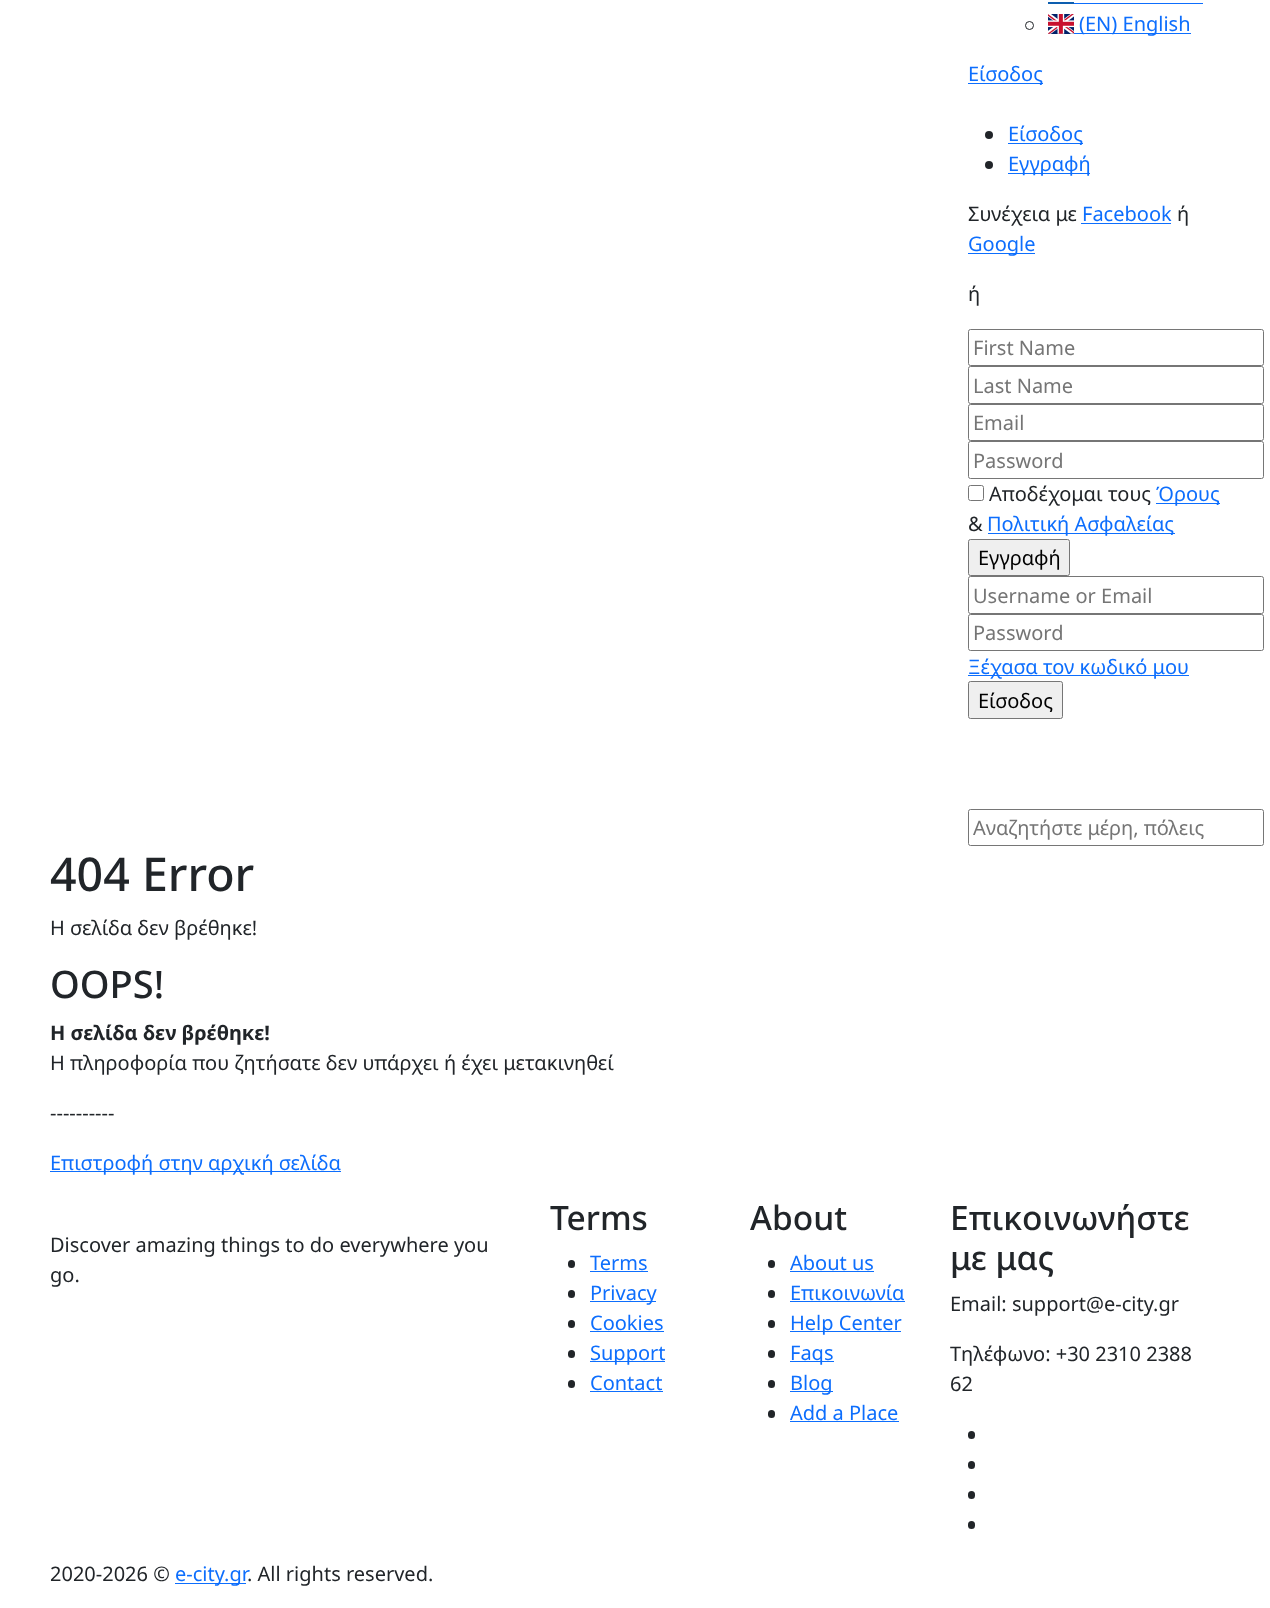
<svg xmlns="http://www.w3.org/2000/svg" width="1270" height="1608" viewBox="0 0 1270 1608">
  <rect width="100%" height="100%" fill="rgb(255,255,255)"/>
  <rect x="1048" y="2" width="26" height="2" fill="rgb(13,94,175)"/>
  <rect x="1074" y="3" width="129" height="1" fill="rgb(13,110,253)"/>
  <circle cx="1029.5" cy="25.5" r="4" fill="none" stroke="rgb(33,37,41)"/>
  <image x="1048" y="14" width="26" height="20" href="pic1.png"/>
  <rect x="1074" y="33" width="117" height="1" fill="rgb(13,110,253)"/>
  <text x="1079" y="31" font-family="Noto Sans" font-size="20" fill="rgb(13,110,253)">(EN) English</text>
  <rect x="968" y="83" width="75" height="1" fill="rgb(13,110,253)"/>
  <text x="968" y="81" font-family="Noto Sans" font-size="20" fill="rgb(13,110,253)">Είσοδος</text>
  <circle cx="989" cy="135" r="4" fill="rgb(33,37,41)"/>
  <rect x="1008" y="143" width="75" height="1" fill="rgb(13,110,253)"/>
  <text x="1008" y="141" font-family="Noto Sans" font-size="20" fill="rgb(13,110,253)">Είσοδος</text>
  <circle cx="989" cy="165" r="4" fill="rgb(33,37,41)"/>
  <rect x="1008" y="173" width="82" height="1" fill="rgb(13,110,253)"/>
  <text x="1008" y="171" font-family="Noto Sans" font-size="20" fill="rgb(13,110,253)">Εγγραφή</text>
  <text x="968" y="221" font-family="Noto Sans" font-size="20" fill="rgb(33,37,41)">Συνέχεια με</text>
  <text x="1082" y="221" font-family="Noto Sans" font-size="20" fill="rgb(13,110,253)">Facebook</text>
  <rect x="1081" y="223" width="90" height="1" fill="rgb(13,110,253)"/>
  <text x="1177" y="221" font-family="Noto Sans" font-size="20" fill="rgb(33,37,41)">ή</text>
  <rect x="968" y="253" width="67" height="1" fill="rgb(13,110,253)"/>
  <text x="968" y="251" font-family="Noto Sans" font-size="20" fill="rgb(13,110,253)">Google</text>
  <text x="968" y="301" font-family="Noto Sans" font-size="20" fill="rgb(33,37,41)">ή</text>
  <rect x="968.5" y="329.5" width="295" height="36" rx="2" fill="none" stroke="rgb(118,118,118)"/>
  <text x="973" y="355" font-family="Noto Sans" font-size="20" fill="rgb(117,117,117)">First Name</text>
  <rect x="968.5" y="366.5" width="295" height="37" rx="2" fill="none" stroke="rgb(118,118,118)"/>
  <text x="973" y="393" font-family="Noto Sans" font-size="20" fill="rgb(117,117,117)">Last Name</text>
  <rect x="968.5" y="404.5" width="295" height="36" rx="2" fill="none" stroke="rgb(118,118,118)"/>
  <text x="973" y="430" font-family="Noto Sans" font-size="20" fill="rgb(117,117,117)">Email</text>
  <rect x="968.5" y="441.5" width="295" height="37" rx="2" fill="none" stroke="rgb(118,118,118)"/>
  <text x="973" y="468" font-family="Noto Sans" font-size="20" fill="rgb(117,117,117)">Password</text>
  <rect x="968.5" y="485.5" width="15" height="15" rx="2" fill="none" stroke="rgb(118,118,118)"/>
  <text x="989" y="501" font-family="Noto Sans" font-size="20" fill="rgb(33,37,41)">Αποδέχομαι τους</text>
  <rect x="1156" y="503" width="64" height="1" fill="rgb(13,110,253)"/>
  <text x="1156" y="501" font-family="Noto Sans" font-size="20" fill="rgb(13,110,253)">Όρους</text>
  <text x="968" y="531" font-family="Noto Sans" font-size="20" fill="rgb(33,37,41)">&amp;</text>
  <rect x="988" y="533" width="187" height="1" fill="rgb(13,110,253)"/>
  <text x="987" y="531" font-family="Noto Sans" font-size="20" fill="rgb(13,110,253)">Πολιτική Ασφαλείας</text>
  <rect x="968.5" y="539.5" width="101" height="36" rx="2" fill="rgb(239,239,239)" stroke="rgb(118,118,118)"/>
  <text x="978" y="565" font-family="Noto Sans" font-size="20" fill="rgb(0,0,0)">Εγγραφή</text>
  <rect x="968.5" y="576.5" width="295" height="37" rx="2" fill="none" stroke="rgb(118,118,118)"/>
  <text x="973" y="603" font-family="Noto Sans" font-size="20" fill="rgb(117,117,117)">Username or Email</text>
  <rect x="968.5" y="614.5" width="295" height="36" rx="2" fill="none" stroke="rgb(118,118,118)"/>
  <text x="973" y="640" font-family="Noto Sans" font-size="20" fill="rgb(117,117,117)">Password</text>
  <rect x="968" y="675" width="221" height="1" fill="rgb(13,110,253)"/>
  <text x="968" y="674" font-family="Noto Sans" font-size="20" fill="rgb(13,110,253)">Ξέχασα τον κωδικό μου</text>
  <rect x="968.5" y="681.5" width="94" height="37" rx="2" fill="rgb(239,239,239)" stroke="rgb(118,118,118)"/>
  <text x="978" y="708" font-family="Noto Sans" font-size="20" fill="rgb(0,0,0)">Είσοδος</text>
  <rect x="968.5" y="809.5" width="295" height="36" rx="2" fill="none" stroke="rgb(118,118,118)"/>
  <text x="973" y="835" font-family="Noto Sans" font-size="20" fill="rgb(117,117,117)">Αναζητήστε μέρη, πόλεις</text>
  <text x="50" y="891" font-family="Noto Sans" font-size="46.5" font-weight="500" fill="rgb(33,37,41)">404 Error</text>
  <text x="50" y="935" font-family="Noto Sans" font-size="20" fill="rgb(33,37,41)">Η σελίδα δεν βρέθηκε!</text>
  <text x="50" y="998" font-family="Noto Sans" font-size="38" font-weight="500" fill="rgb(33,37,41)">OOPS!</text>
  <text x="50" y="1040" font-family="Noto Sans" font-size="20" font-weight="bold" fill="rgb(33,37,41)">Η σελίδα δεν βρέθηκε!</text>
  <g font-family="Noto Sans" font-size="20" fill="rgb(33,37,41)">
    <text x="50" y="1070">Η πληροφορία που ζητήσατε δεν υπάρχει ή έχει μετακινηθεί</text>
    <text x="50" y="1120">----------</text>
  </g>
  <rect x="50" y="1171" width="291" height="1" fill="rgb(13,110,253)"/>
  <text x="50" y="1170" font-family="Noto Sans" font-size="20" fill="rgb(13,110,253)">Επιστροφή στην αρχική σελίδα</text>
  <g font-family="Noto Sans" font-size="20" fill="rgb(33,37,41)">
    <text>
      <tspan x="50" y="1252">Discover amazing things to do everywhere you</tspan>
      <tspan x="50" y="1282">go.</tspan>
    </text>
  </g>
  <text x="550" y="1230" font-family="Noto Sans" font-size="33.5" font-weight="500" fill="rgb(33,37,41)">Terms</text>
  <rect x="568" y="1260" width="7" height="8" rx="3.5" fill="rgb(33,37,41)"/>
  <text x="590" y="1270" font-family="Noto Sans" font-size="20" fill="rgb(13,110,253)">Terms</text>
  <rect x="590" y="1271" width="58" height="1" fill="rgb(13,110,253)"/>
  <rect x="568" y="1290" width="7" height="8" rx="3.5" fill="rgb(33,37,41)"/>
  <rect x="590" y="1301" width="66" height="1" fill="rgb(13,110,253)"/>
  <text x="590" y="1300" font-family="Noto Sans" font-size="20" fill="rgb(13,110,253)">Privacy</text>
  <rect x="568" y="1320" width="7" height="8" rx="3.5" fill="rgb(33,37,41)"/>
  <text x="590" y="1330" font-family="Noto Sans" font-size="20" fill="rgb(13,110,253)">Cookies</text>
  <rect x="590" y="1331" width="74" height="1" fill="rgb(13,110,253)"/>
  <rect x="568" y="1350" width="7" height="8" rx="3.5" fill="rgb(33,37,41)"/>
  <rect x="590" y="1361" width="75" height="1" fill="rgb(13,110,253)"/>
  <text x="590" y="1360" font-family="Noto Sans" font-size="20" fill="rgb(13,110,253)">Support</text>
  <rect x="568" y="1380" width="7" height="8" rx="3.5" fill="rgb(33,37,41)"/>
  <text x="590" y="1390" font-family="Noto Sans" font-size="20" fill="rgb(13,110,253)">Contact</text>
  <rect x="590" y="1391" width="73" height="1" fill="rgb(13,110,253)"/>
  <text x="750" y="1230" font-family="Noto Sans" font-size="33.5" font-weight="500" fill="rgb(33,37,41)">About</text>
  <rect x="768" y="1260" width="7" height="8" rx="3.5" fill="rgb(33,37,41)"/>
  <text x="790" y="1270" font-family="Noto Sans" font-size="20" fill="rgb(13,110,253)">About us</text>
  <rect x="790" y="1271" width="84" height="1" fill="rgb(13,110,253)"/>
  <rect x="768" y="1290" width="7" height="8" rx="3.5" fill="rgb(33,37,41)"/>
  <text x="790" y="1300" font-family="Noto Sans" font-size="20" fill="rgb(13,110,253)">Επικοινωνία</text>
  <rect x="790" y="1301" width="115" height="1" fill="rgb(13,110,253)"/>
  <rect x="768" y="1320" width="7" height="8" rx="3.5" fill="rgb(33,37,41)"/>
  <rect x="790" y="1331" width="111" height="1" fill="rgb(13,110,253)"/>
  <text x="790" y="1330" font-family="Noto Sans" font-size="20" fill="rgb(13,110,253)">Help Center</text>
  <rect x="768" y="1350" width="7" height="8" rx="3.5" fill="rgb(33,37,41)"/>
  <rect x="790" y="1361" width="44" height="1" fill="rgb(13,110,253)"/>
  <text x="790" y="1360" font-family="Noto Sans" font-size="20" fill="rgb(13,110,253)">Faqs</text>
  <rect x="768" y="1380" width="7" height="8" rx="3.5" fill="rgb(33,37,41)"/>
  <rect x="790" y="1391" width="43" height="1" fill="rgb(13,110,253)"/>
  <text x="790" y="1390" font-family="Noto Sans" font-size="20" fill="rgb(13,110,253)">Blog</text>
  <rect x="768" y="1410" width="7" height="8" rx="3.5" fill="rgb(33,37,41)"/>
  <text x="790" y="1420" font-family="Noto Sans" font-size="20" fill="rgb(13,110,253)">Add a Place</text>
  <rect x="790" y="1421" width="109" height="1" fill="rgb(13,110,253)"/>
  <g font-family="Noto Sans" font-size="33.5" font-weight="500" fill="rgb(33,37,41)">
    <text>
      <tspan x="950" y="1230">Επικοινωνήστε</tspan>
      <tspan x="950" y="1270">με μας</tspan>
    </text>
  </g>
  <g font-family="Noto Sans" font-size="20" fill="rgb(33,37,41)">
    <text x="950" y="1311">Email: support@e-city.gr</text>
    <text>
      <tspan x="950" y="1361">Τηλέφωνο: +30 2310 2388</tspan>
      <tspan x="950" y="1391">62</tspan>
    </text>
  </g>
  <rect x="968" y="1431" width="7" height="8" rx="3.5" fill="rgb(33,37,41)"/>
  <rect x="968" y="1461" width="7" height="8" rx="3.5" fill="rgb(33,37,41)"/>
  <rect x="968" y="1491" width="7" height="8" rx="3.5" fill="rgb(33,37,41)"/>
  <rect x="968" y="1521" width="7" height="8" rx="3.5" fill="rgb(33,37,41)"/>
  <text x="50" y="1581" font-family="Noto Sans" font-size="20" fill="rgb(33,37,41)">2020-2026 ©</text>
  <rect x="175" y="1583" width="71" height="1" fill="rgb(13,110,253)"/>
  <text x="175" y="1581" font-family="Noto Sans" font-size="20" fill="rgb(13,110,253)">e-city.gr</text>
  <text x="247" y="1581" font-family="Noto Sans" font-size="20" fill="rgb(33,37,41)">. All rights reserved.</text>
</svg>
